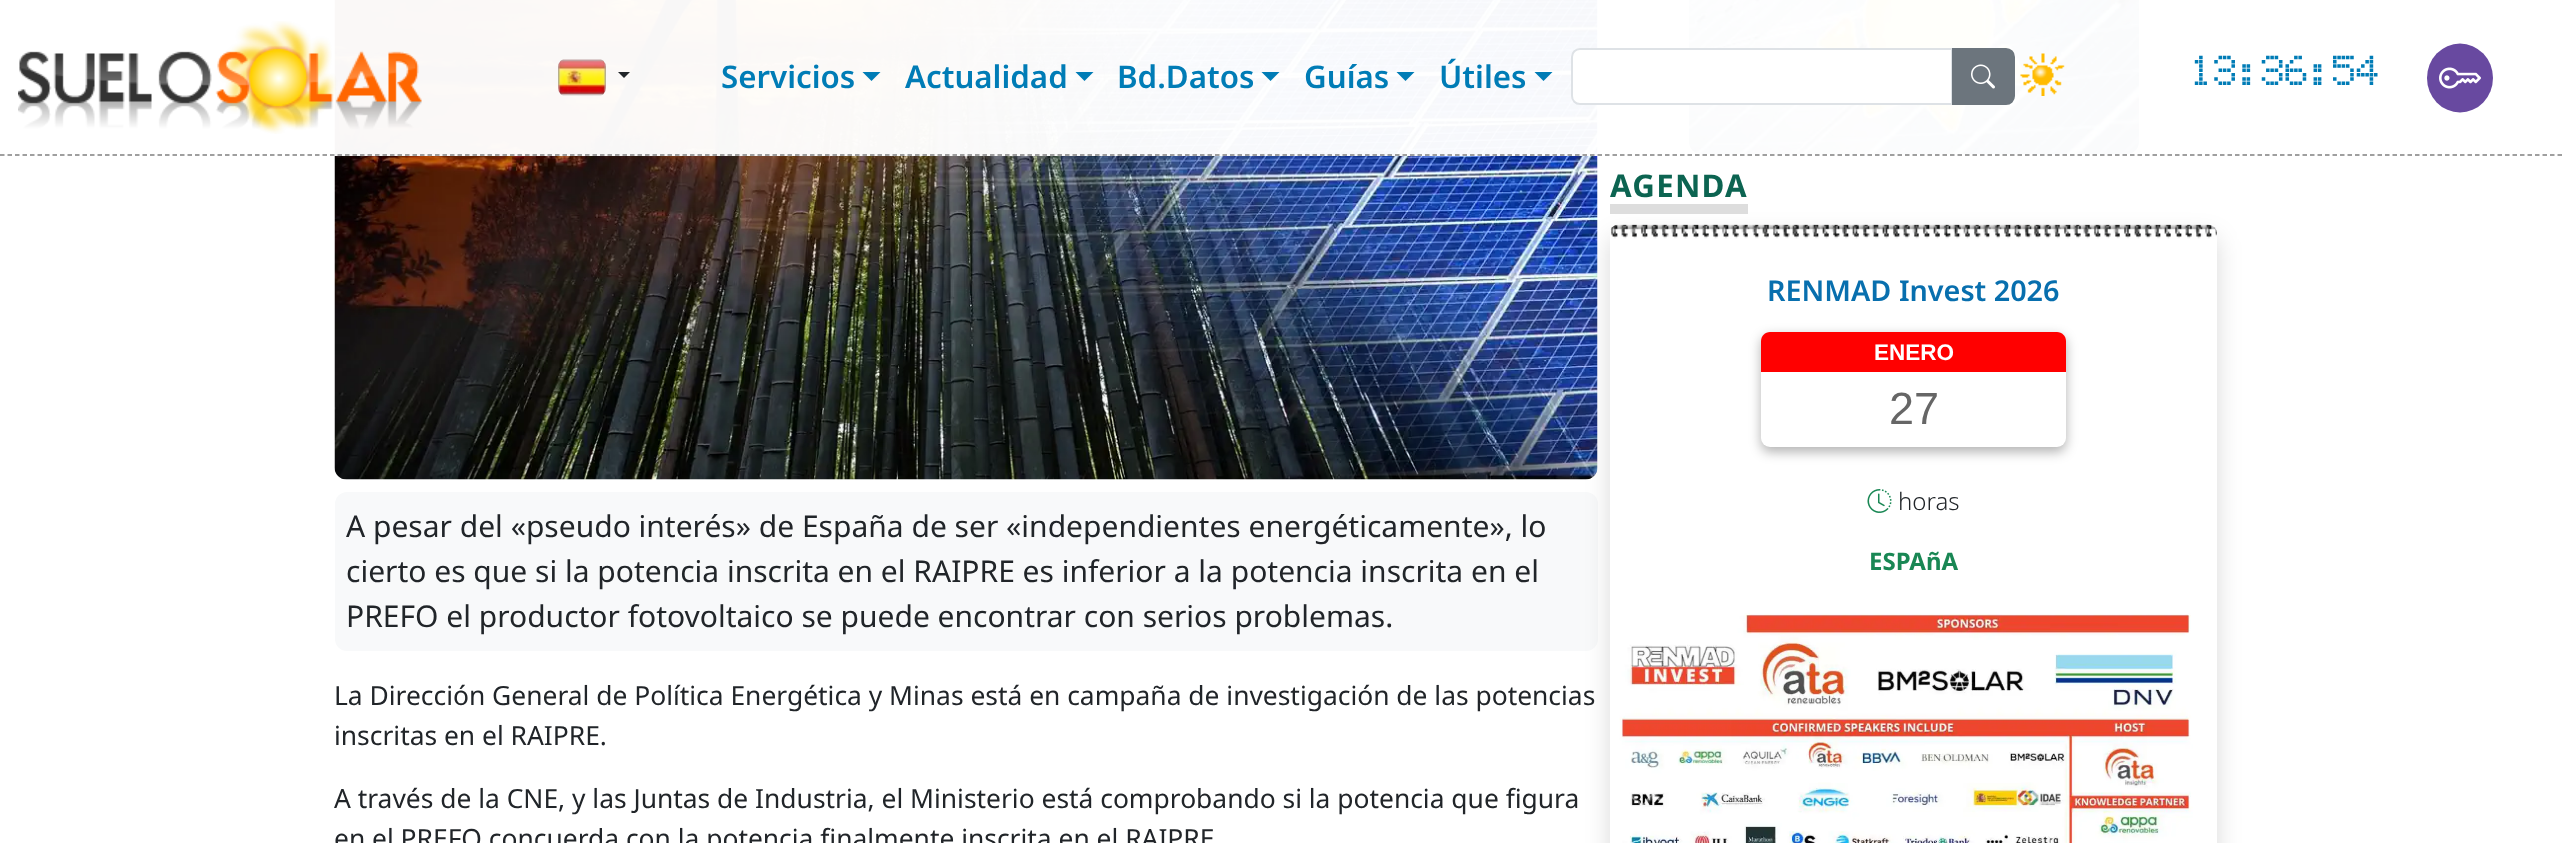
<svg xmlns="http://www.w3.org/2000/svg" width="2563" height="843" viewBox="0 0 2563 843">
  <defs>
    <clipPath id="clip1"><path d="M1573 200H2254V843H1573ZM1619 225H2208C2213 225 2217 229 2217 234V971C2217 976 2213 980 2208 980H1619C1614 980 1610 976 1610 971V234C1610 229 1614 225 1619 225Z" clip-rule="evenodd"/></clipPath>
  </defs>
  <rect width="100%" height="100%" fill="rgb(255,255,255)"/>
  <image x="1689" y="0" width="450" height="154" href="pic6.png"/>
  <image x="334" y="0" width="1264" height="480" href="pic10.png"/>
  <rect x="334" y="0" width="1805" height="156" fill="rgba(255,255,255,0.97)"/>
  <path d="M0 155H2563.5" fill="none" stroke="rgb(128,128,128)" stroke-width="1.5" stroke-dasharray="4.5 3"/>
  <image x="18" y="21" width="404" height="113" href="pic1.png"/>
  <image x="558" y="59" width="48" height="37" href="pic2.png"/>
  <path d="M618 72H630L624 78Z" fill="rgb(33,37,41)"/>
  <text x="721" y="88" font-family="Noto Sans" font-size="31.25" font-weight="600" fill="rgb(0,124,182)">Servicios</text>
  <path d="M862.5 72H880.5L871.5 81Z" fill="rgb(0,124,182)"/>
  <text x="905" y="88" font-family="Noto Sans" font-size="31.25" font-weight="600" fill="rgb(0,124,182)">Actualidad</text>
  <path d="M1075.5 72H1093.5L1084.5 81Z" fill="rgb(0,124,182)"/>
  <text x="1117" y="88" font-family="Noto Sans" font-size="31.25" font-weight="600" fill="rgb(0,124,182)">Bd.Datos</text>
  <path d="M1261.5 72H1279.5L1270.5 81Z" fill="rgb(0,124,182)"/>
  <text x="1304" y="88" font-family="Noto Sans" font-size="31.25" font-weight="600" fill="rgb(0,124,182)">Guías</text>
  <path d="M1396.5 72H1414.5L1405.5 81Z" fill="rgb(0,124,182)"/>
  <text x="1439" y="88" font-family="Noto Sans" font-size="31.25" font-weight="600" fill="rgb(0,124,182)">Útiles</text>
  <path d="M1534.5 72H1552.5L1543.5 81Z" fill="rgb(0,124,182)"/>
  <path d="M1580 49H1952V104H1580C1575.5 104 1572 100.5 1572 96V57C1572 52.5 1575.5 49 1580 49Z" fill="rgb(255,255,255)" stroke="rgb(222,226,230)" stroke-width="2"/>
  <path d="M1953 49H2006C2010.5 49 2014 52.5 2014 57V96C2014 100.5 2010.5 104 2006 104H1953Z" fill="rgb(108,117,125)" stroke="rgb(108,117,125)" stroke-width="2"/>
  <image x="1971" y="64" width="24" height="25" href="pic3.png"/>
  <image x="2020" y="53" width="45" height="43" href="pic4.png"/>
  <text x="2189" y="85" font-family="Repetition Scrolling" font-size="43" fill="rgb(0,124,182)">13:36:54</text>
  <ellipse cx="2460" cy="78" rx="33" ry="34.5" fill="rgb(104,73,160)"/>
  <image x="2439" y="67" width="42" height="22" href="pic5.png"/>
  <rect x="335" y="492" width="1263" height="159" rx="12" fill="rgb(248,249,250)"/>
  <g clip-path="url(#clip1)">
    <rect x="1610" y="237" width="607" height="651" rx="9" fill="rgba(0,0,0,0.15)" filter="blur(12px)"/>
  </g>
  <rect x="1610" y="204" width="138" height="10" fill="rgb(221,221,221)"/>
  <text x="1610" y="197" font-family="Noto Sans" font-size="31.25" font-weight="bold" letter-spacing="1.25" fill="rgb(12,100,81)">AGENDA</text>
  <image x="1610" y="224" width="607" height="15" href="pic7.png"/>
  <text x="1767" y="301" font-family="Noto Sans" font-size="28.75" font-weight="600" fill="rgb(8,111,174)">RENMAD Invest 2026</text>
  <rect x="1761" y="336" width="305" height="116" rx="9" fill="rgba(0,0,0,0.3)" filter="blur(6px)"/>
  <rect x="1761" y="332" width="305" height="115" rx="9" fill="rgb(255,255,255)"/>
  <path d="M1770 332H2057C2062 332 2066 336 2066 341V372H1761V341C1761 336 1765 332 1770 332Z" fill="rgb(255,0,0)"/>
  <text x="1874" y="360" font-family="Liberation Sans" font-size="22.5" font-weight="bold" fill="rgb(255,255,255)">ENERO</text>
  <text x="1889" y="424" font-family="Liberation Sans" font-size="45" fill="rgb(102,102,102)">27</text>
  <image x="1867" y="489" width="25" height="24" href="pic8.png"/>
  <text x="1898" y="510" font-family="Noto Sans" font-size="24" font-weight="300" fill="rgb(33,37,41)">horas</text>
  <text x="1869" y="570" font-family="Noto Sans" font-size="24" font-weight="bold" fill="rgb(25,135,84)">ESPAñA</text>
  <image x="1619" y="613" width="574" height="230" href="pic9.png"/>
  <g font-family="Noto Sans" font-size="30" fill="rgb(33,37,41)">
    <text>
      <tspan x="346" y="537">A pesar del «pseudo interés» de España de ser «independientes energéticamente», lo</tspan>
      <tspan x="346" y="582">cierto es que si la potencia inscrita en el RAIPRE es inferior a la potencia inscrita en el</tspan>
      <tspan x="346" y="627">PREFO el productor fotovoltaico se puede encontrar con serios problemas.</tspan>
    </text>
  </g>
  <g font-family="Noto Sans" font-size="26.4" fill="rgb(33,37,41)">
    <text>
      <tspan x="334" y="705">La Dirección General de Política Energética y Minas está en campaña de investigación de las potencias</tspan>
      <tspan x="334" y="745">inscritas en el RAIPRE.</tspan>
    </text>
    <text>
      <tspan x="334" y="808">A través de la CNE, y las Juntas de Industria, el Ministerio está comprobando si la potencia que figura</tspan>
      <tspan x="334" y="848">en el PREFO concuerda con la potencia finalmente inscrita en el RAIPRE</tspan>
    </text>
  </g>
</svg>
